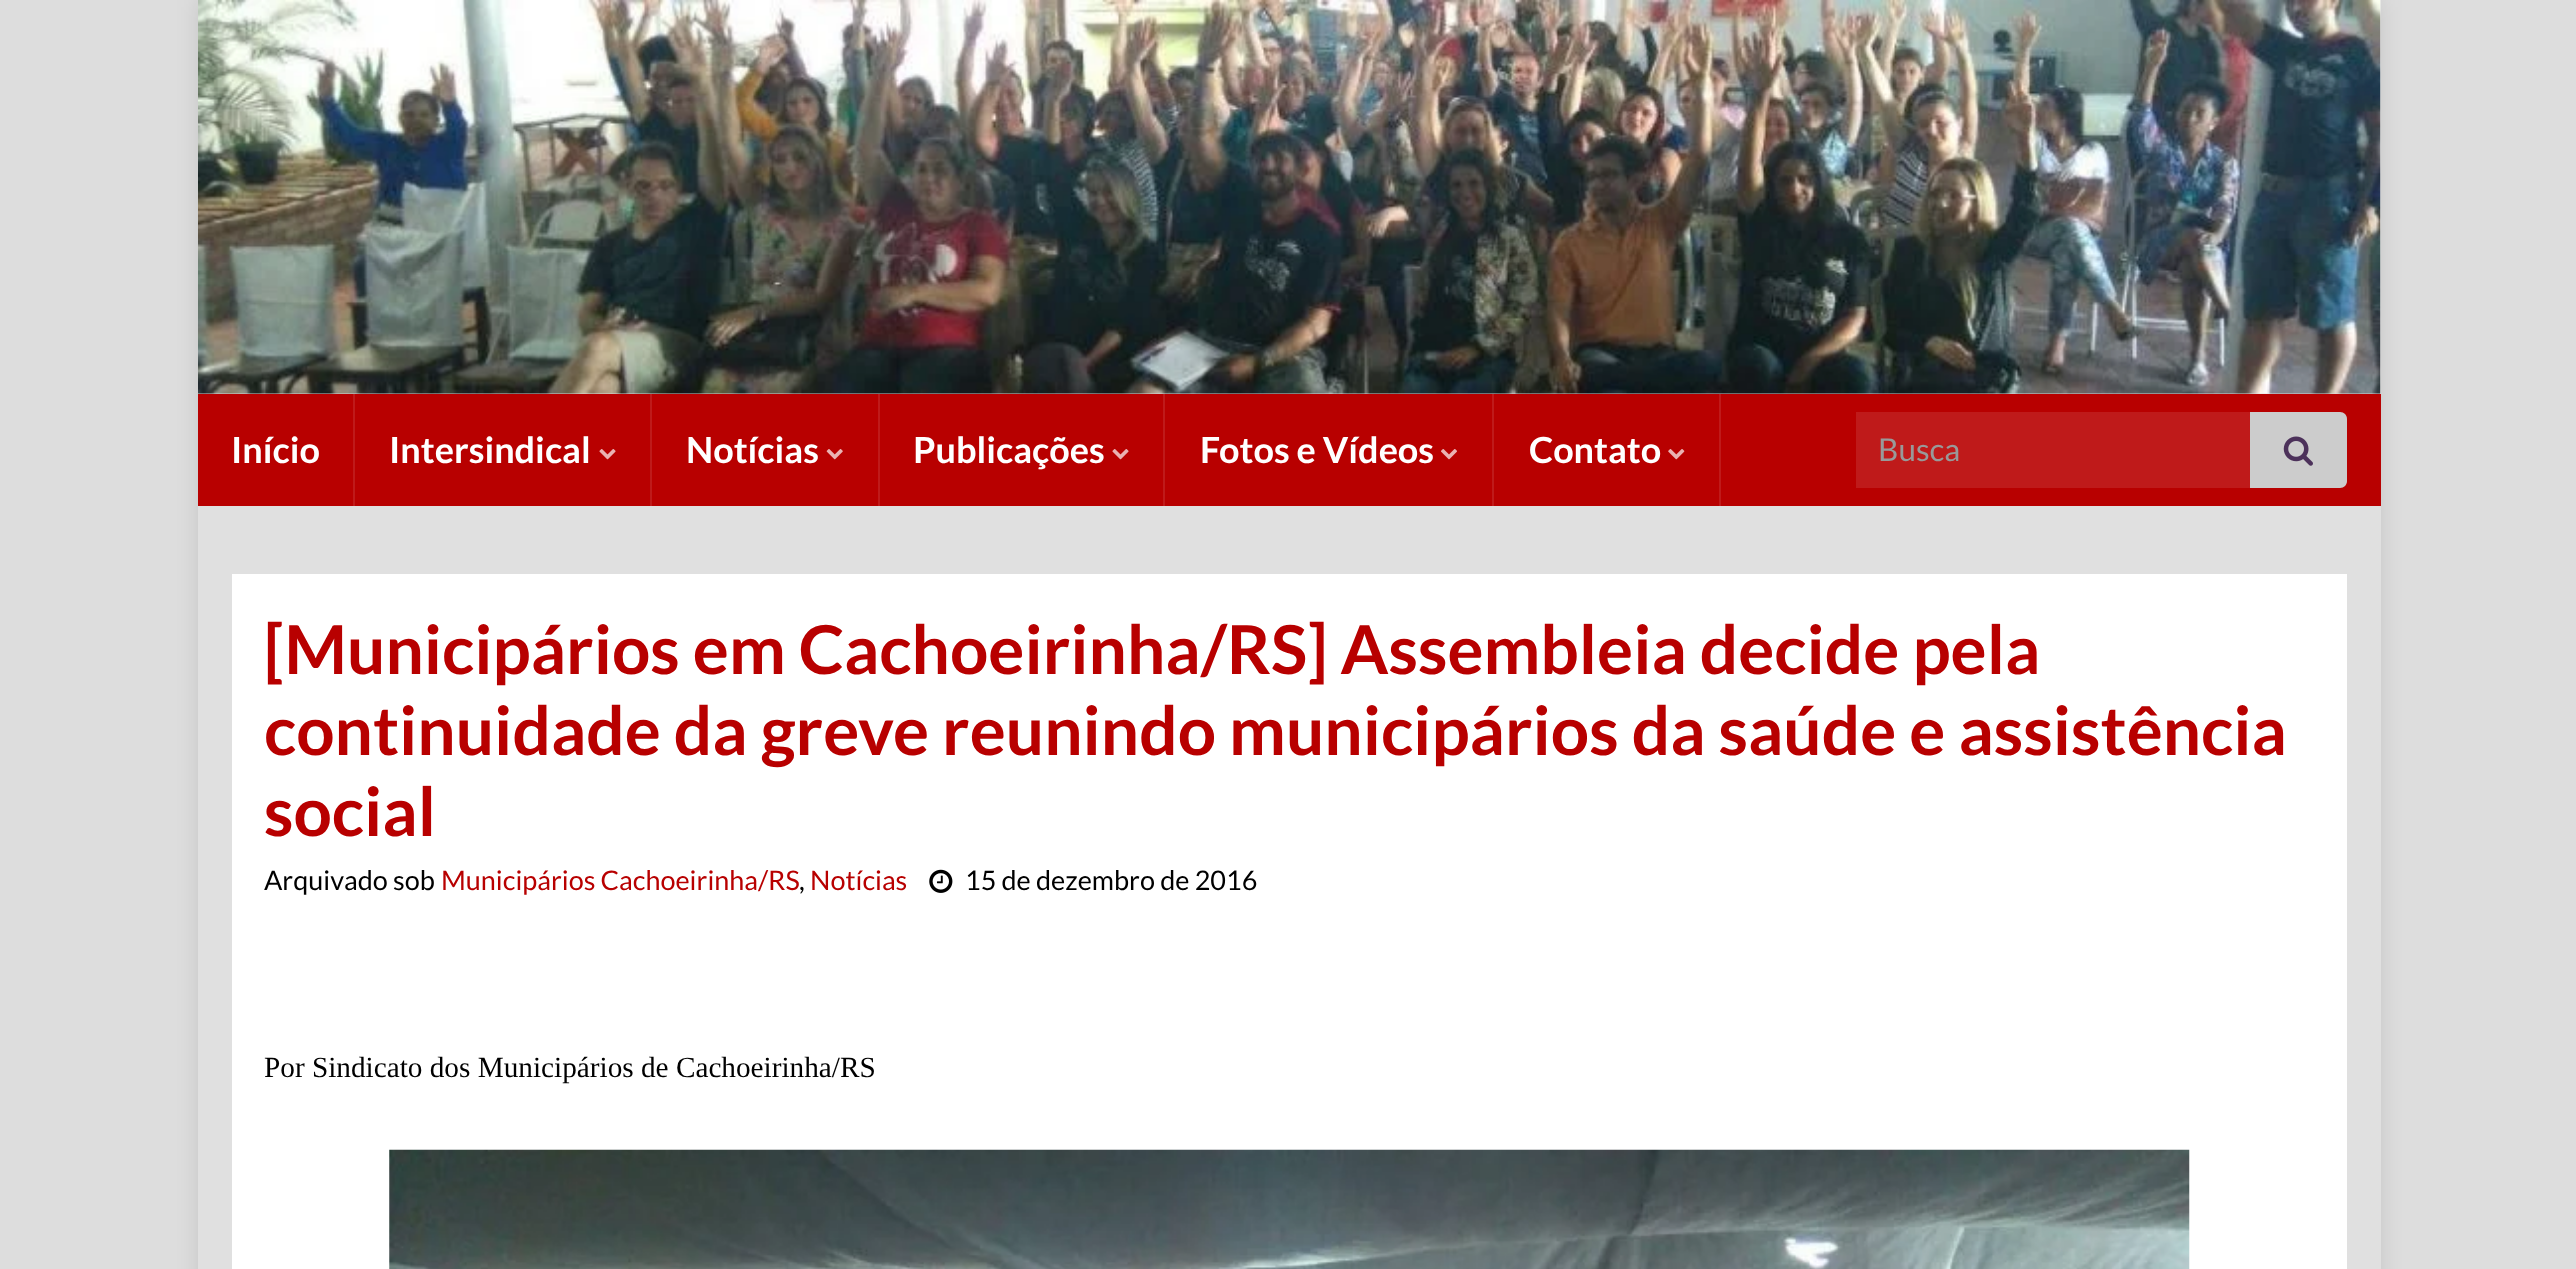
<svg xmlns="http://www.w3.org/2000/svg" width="2576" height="1269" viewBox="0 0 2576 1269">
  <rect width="100%" height="100%" fill="rgb(221,221,221)"/>
  <rect x="198" y="0" width="2183" height="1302" fill="rgba(0,0,0,0.1)" filter="blur(11px)"/>
  <rect x="198" y="0" width="2183" height="394" fill="rgb(224,224,224)"/>
  <image x="198" y="0" width="2183" height="394" href="pic1.png"/>
  <rect x="198" y="394" width="2183" height="112" fill="rgb(184,0,0)"/>
  <rect x="353" y="394" width="2" height="112" fill="rgb(191,26,26)"/>
  <text x="231" y="463" font-family="Lato" font-size="36" font-weight="bold" fill="rgb(255,255,255)">Início</text>
  <rect x="650" y="394" width="2" height="112" fill="rgb(191,26,26)"/>
  <text x="389" y="463" font-family="Lato" font-size="36" font-weight="bold" fill="rgb(255,255,255)">Intersindical</text>
  <image x="599" y="449" width="17" height="11" href="pic2.png"/>
  <rect x="878" y="394" width="2" height="112" fill="rgb(191,26,26)"/>
  <text x="686" y="463" font-family="Lato" font-size="36" font-weight="bold" fill="rgb(255,255,255)">Notícias</text>
  <image x="826" y="449" width="17" height="11" href="pic3.png"/>
  <rect x="1163" y="394" width="2" height="112" fill="rgb(191,26,26)"/>
  <text x="913" y="463" font-family="Lato" font-size="36" font-weight="bold" fill="rgb(255,255,255)">Publicações</text>
  <image x="1112" y="449" width="17" height="11" href="pic2.png"/>
  <rect x="1492" y="394" width="2" height="112" fill="rgb(191,26,26)"/>
  <text x="1200" y="463" font-family="Lato" font-size="36" font-weight="bold" fill="rgb(255,255,255)">Fotos e Vídeos</text>
  <image x="1441" y="449" width="16" height="11" href="pic4.png"/>
  <rect x="1719" y="394" width="2" height="112" fill="rgb(191,26,26)"/>
  <text x="1529" y="463" font-family="Lato" font-size="36" font-weight="bold" fill="rgb(255,255,255)">Contato</text>
  <image x="1668" y="449" width="17" height="11" href="pic5.png"/>
  <rect x="1856" y="412" width="394" height="76" fill="rgb(191,26,26)"/>
  <text x="1878" y="461" font-family="Lato" font-size="31.5" fill="rgb(153,153,153)">Busca</text>
  <path d="M2250 412H2340C2344 412 2347 415 2347 419V481C2347 485 2344 488 2340 488H2250Z" fill="rgb(204,204,204)"/>
  <image x="2283" y="436" width="30" height="30" href="pic6.png"/>
  <rect x="198" y="506" width="2183" height="763" fill="rgb(224,224,224)"/>
  <rect x="232" y="574" width="2115" height="695" fill="rgb(255,255,255)"/>
  <g font-family="Lato" font-size="67.5" font-weight="bold" fill="rgb(184,0,0)">
    <text>
      <tspan x="264" y="674">[Municipários em Cachoeirinha/RS] Assembleia decide pela</tspan>
      <tspan x="264" y="755">continuidade da greve reunindo municipários da saúde e assistência</tspan>
      <tspan x="264" y="836">social</tspan>
    </text>
  </g>
  <text x="264" y="890" font-family="Lato" font-size="27" fill="rgb(0,0,0)">Arquivado sob</text>
  <text x="441" y="890" font-family="Lato" font-size="27" fill="rgb(184,0,0)">Municipários Cachoeirinha/RS</text>
  <text x="799" y="890" font-family="Lato" font-size="27" fill="rgb(0,0,0)">,</text>
  <text x="810" y="890" font-family="Lato" font-size="27" fill="rgb(184,0,0)">Notícias</text>
  <image x="929" y="869" width="24" height="24" href="pic7.png"/>
  <text x="965" y="890" font-family="Lato" font-size="27" fill="rgb(0,0,0)">15 de dezembro de 2016</text>
  <text x="264" y="1077" font-family="Liberation Serif" font-size="29.25" fill="rgb(0,0,0)">Por Sindicato dos Municipários de Cachoeirinha/RS</text>
  <image x="389" y="1149" width="1801" height="120" href="pic8.png"/>
</svg>
